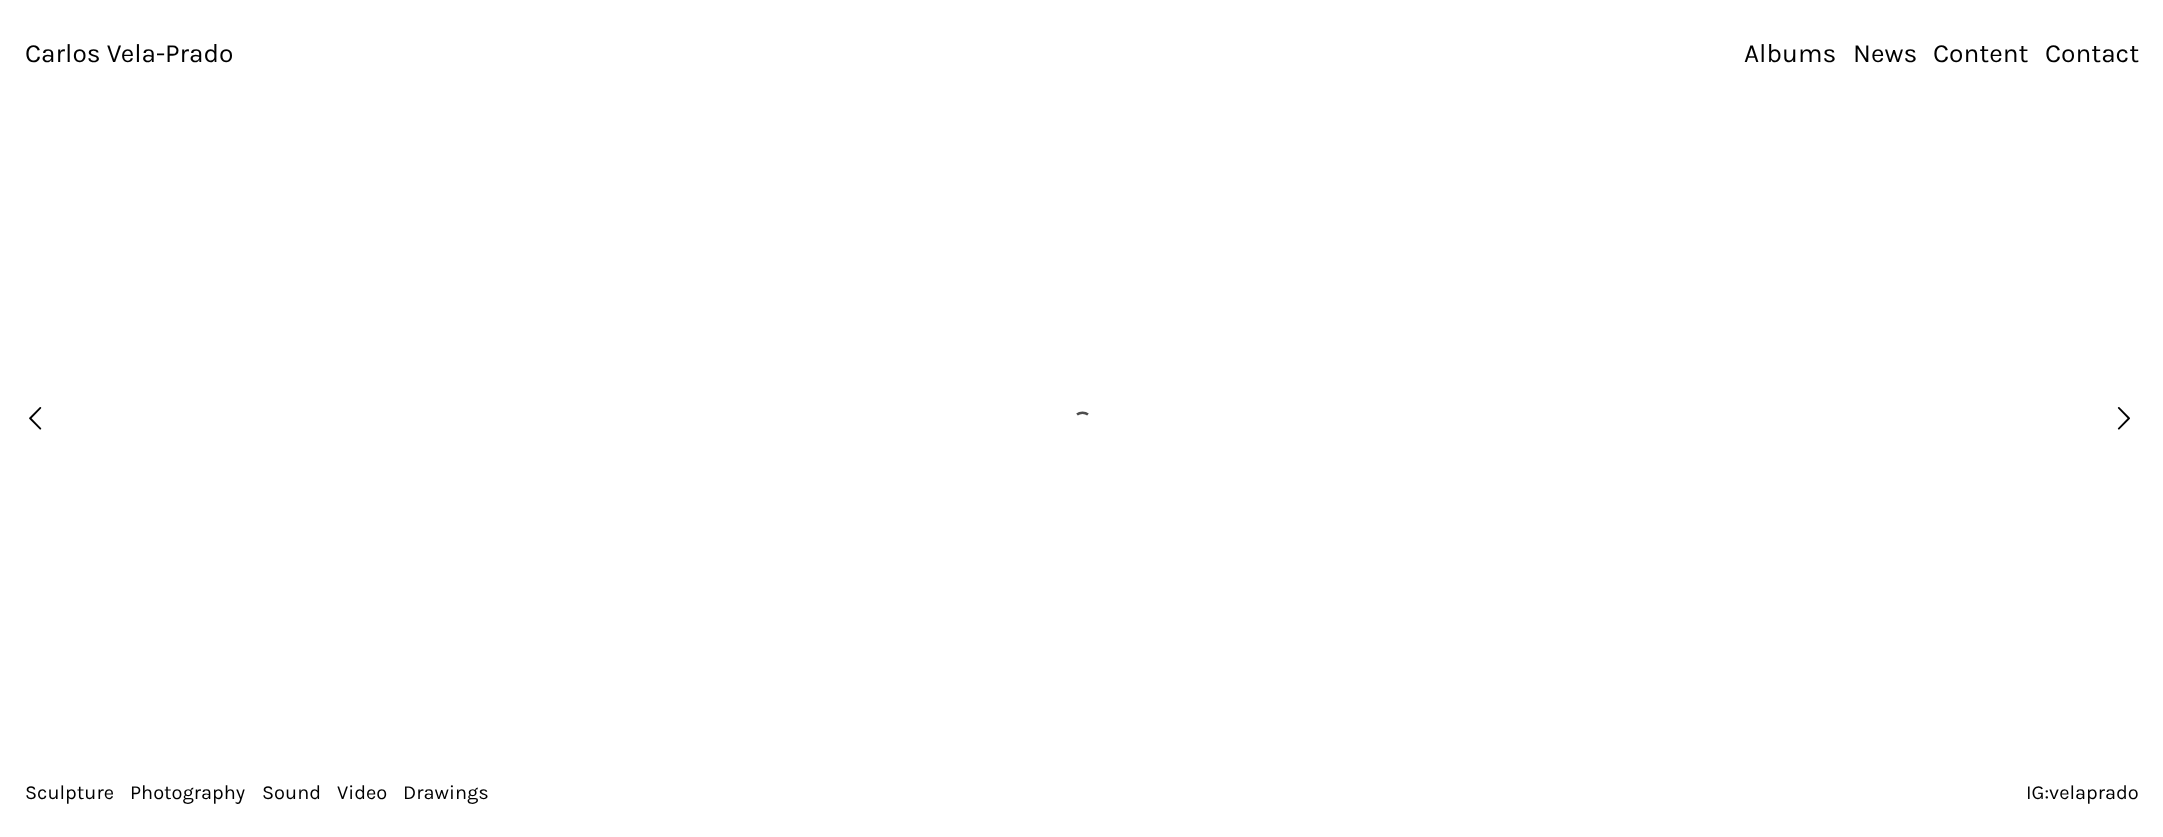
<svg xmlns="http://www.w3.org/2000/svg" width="2163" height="837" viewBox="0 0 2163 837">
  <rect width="100%" height="100%" fill="rgb(255,255,255)"/>
  <g font-family="Karla" font-size="26.25" fill="rgb(0,0,0)">
    <text x="25" y="62">Carlos Vela-Prado</text>
    <text x="1744" y="62">Albums</text>
    <text x="1853" y="62">News</text>
    <text x="1933" y="62">Content</text>
    <text x="2045" y="62">Contact</text>
  </g>
  <image x="29" y="407" width="13" height="23" href="pic1.png"/>
  <image x="2117" y="407" width="13" height="23" href="pic2.png"/>
  <path d="M1077 414.5C1080 412 1085 412 1088 414.5" fill="none" stroke="rgb(77,77,77)" stroke-width="2.5"/>
  <g font-family="Karla" font-size="20" fill="rgb(0,0,0)">
    <text x="25" y="799">Sculpture</text>
    <text x="130" y="799">Photography</text>
    <text x="262" y="799">Sound</text>
    <text x="337" y="799">Video</text>
    <text x="403" y="799">Drawings</text>
    <text x="2026" y="799">IG:velaprado</text>
  </g>
</svg>
